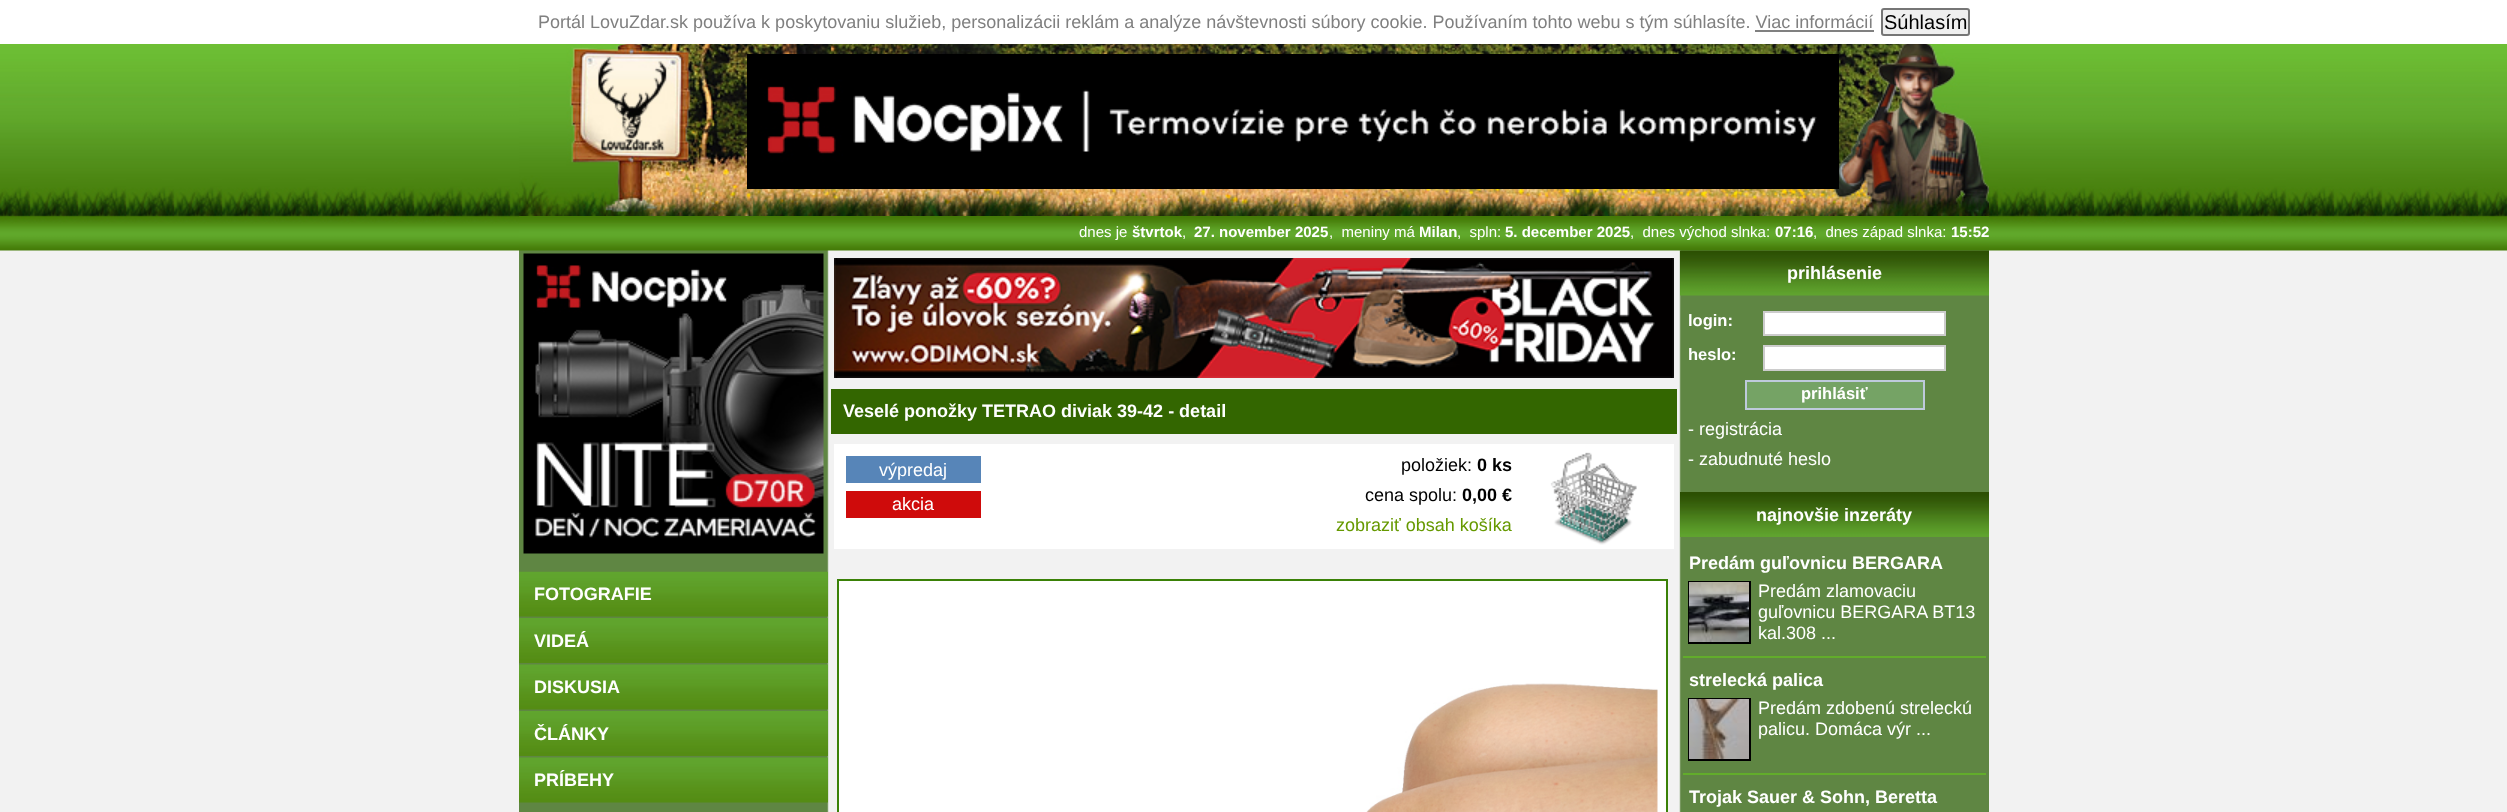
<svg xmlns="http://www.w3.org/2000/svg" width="2507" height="812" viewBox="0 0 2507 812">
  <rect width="100%" height="100%" fill="rgb(242,242,242)"/>
  <rect x="0" y="0" width="2507" height="44" fill="rgb(255,255,255)"/>
  <text x="538" y="28" font-family="Liberation Sans" font-size="18" fill="rgb(128,128,128)">Portál LovuZdar.sk používa k poskytovaniu služieb, personalizácii reklám a analýze návštevnosti súbory cookie. Používaním tohto webu s tým súhlasíte. Viac informácií</text>
  <rect x="1755" y="30" width="119" height="2" fill="rgb(128,128,128)"/>
  <rect x="1882" y="9" width="87" height="26" rx="2" fill="rgb(239,239,239)" stroke="rgb(118,118,118)" stroke-width="2"/>
  <text x="1884" y="29" font-family="Liberation Sans" font-size="20" fill="rgb(0,0,0)">Súhlasím</text>
  <image x="0" y="44" width="2507" height="207" href="pic1.png"/>
  <image x="519" y="250" width="1470" height="562" href="pic2.png"/>
  <image x="519" y="44" width="1470" height="172" href="pic3.png"/>
  <image x="747" y="54" width="1092" height="135" href="pic4.png"/>
  <image x="519" y="216" width="1470" height="35" href="pic5.png"/>
  <text x="1079" y="237" font-family="Liberation Sans" font-size="15" fill="rgb(255,255,255)">dnes je</text>
  <text x="1132" y="237" font-family="Liberation Sans" font-size="15" font-weight="bold" fill="rgb(255,255,255)">štvrtok</text>
  <text x="1182" y="237" font-family="Liberation Sans" font-size="15" fill="rgb(255,255,255)">,</text>
  <text x="1194" y="237" font-family="Liberation Sans" font-size="15" font-weight="bold" fill="rgb(255,255,255)">27. november 2025</text>
  <text x="1329" y="237" font-family="Liberation Sans" font-size="15" fill="rgb(255,255,255)" xml:space="preserve">,  meniny má</text>
  <text x="1419" y="237" font-family="Liberation Sans" font-size="15" font-weight="bold" fill="rgb(255,255,255)">Milan</text>
  <text x="1457" y="237" font-family="Liberation Sans" font-size="15" fill="rgb(255,255,255)" xml:space="preserve">,  spln:</text>
  <text x="1505" y="237" font-family="Liberation Sans" font-size="15" font-weight="bold" fill="rgb(255,255,255)">5. december 2025</text>
  <text x="1630" y="237" font-family="Liberation Sans" font-size="15" fill="rgb(255,255,255)" xml:space="preserve">,  dnes východ slnka:</text>
  <text x="1775" y="237" font-family="Liberation Sans" font-size="15" font-weight="bold" fill="rgb(255,255,255)">07:16</text>
  <text x="1813" y="237" font-family="Liberation Sans" font-size="15" fill="rgb(255,255,255)" xml:space="preserve">,  dnes západ slnka:</text>
  <text x="1951" y="237" font-family="Liberation Sans" font-size="15" font-weight="bold" fill="rgb(255,255,255)">15:52</text>
  <image x="834" y="258" width="840" height="120" href="pic6.png"/>
  <rect x="831" y="389" width="846" height="45" fill="rgb(51,102,0)"/>
  <text x="843" y="417" font-family="Liberation Sans" font-size="18" font-weight="bold" fill="rgb(255,255,255)">Veselé ponožky TETRAO diviak 39-42 - detail</text>
  <rect x="834" y="444" width="840" height="105" fill="rgb(255,255,255)"/>
  <rect x="846" y="456" width="135" height="27" fill="rgb(87,133,184)"/>
  <text x="879" y="476" font-family="Liberation Sans" font-size="18" fill="rgb(255,255,255)">výpredaj</text>
  <rect x="846" y="491" width="135" height="27" fill="rgb(207,11,11)"/>
  <text x="892" y="510" font-family="Liberation Sans" font-size="18" fill="rgb(255,255,255)">akcia</text>
  <text x="1401" y="471" font-family="Liberation Sans" font-size="18" fill="rgb(0,0,0)">položiek:</text>
  <text x="1477" y="471" font-family="Liberation Sans" font-size="18" font-weight="bold" fill="rgb(0,0,0)">0 ks</text>
  <text x="1365" y="501" font-family="Liberation Sans" font-size="18" fill="rgb(0,0,0)">cena spolu:</text>
  <text x="1462" y="501" font-family="Liberation Sans" font-size="18" font-weight="bold" fill="rgb(0,0,0)">0,00 €</text>
  <text x="1336" y="531" font-family="Liberation Sans" font-size="18" fill="rgb(102,153,0)">zobraziť obsah košíka</text>
  <image x="1550" y="452" width="87" height="93" href="pic7.png"/>
  <rect x="838" y="580" width="829" height="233" fill="rgb(255,255,255)" stroke="rgb(58,129,7)" stroke-width="2"/>
  <image x="1366" y="683" width="292" height="129" href="pic8.png"/>
  <image x="1680" y="250" width="309" height="46" href="pic9.png"/>
  <text x="1787" y="279" font-family="Liberation Sans" font-size="18" font-weight="bold" fill="rgb(255,255,255)">prihlásenie</text>
  <text x="1688" y="326" font-family="Liberation Sans" font-size="16.5" font-weight="bold" fill="rgb(255,255,255)">login:</text>
  <rect x="1764" y="312" width="181" height="23" fill="rgb(255,255,255)" stroke="rgb(204,204,204)" stroke-width="2"/>
  <text x="1688" y="360" font-family="Liberation Sans" font-size="16.5" font-weight="bold" fill="rgb(255,255,255)">heslo:</text>
  <rect x="1764" y="346" width="181" height="24" fill="rgb(255,255,255)" stroke="rgb(204,204,204)" stroke-width="2"/>
  <rect x="1746" y="381" width="178" height="28" fill="rgb(117,163,101)" stroke="rgb(190,202,220)" stroke-width="2"/>
  <text x="1801" y="399" font-family="Liberation Sans" font-size="16.5" font-weight="bold" fill="rgb(255,255,255)">prihlásiť</text>
  <g font-family="Liberation Sans" font-size="18" fill="rgb(255,255,255)">
    <text>
      <tspan x="1688" y="435">- registrácia</tspan>
      <tspan x="1688" y="465">- zabudnuté heslo</tspan>
    </text>
  </g>
  <image x="1680" y="492" width="309" height="45" href="pic10.png"/>
  <text x="1756" y="521" font-family="Liberation Sans" font-size="18" font-weight="bold" fill="rgb(255,255,255)">najnovšie inzeráty</text>
  <rect x="1683" y="656" width="303" height="2" fill="rgb(98,173,43)"/>
  <text x="1689" y="569" font-family="Liberation Sans" font-size="18" font-weight="bold" fill="rgb(255,255,255)">Predám guľovnicu BERGARA</text>
  <rect x="1689" y="582" width="61" height="61" fill="none" stroke="rgb(0,0,0)" stroke-width="2"/>
  <image x="1689" y="582" width="60" height="60" href="pic11.png"/>
  <g font-family="Liberation Sans" font-size="18" fill="rgb(255,255,255)">
    <text>
      <tspan x="1758" y="597">Predám zlamovaciu</tspan>
      <tspan x="1758" y="618">guľovnicu BERGARA BT13</tspan>
      <tspan x="1758" y="639">kal.308 ...</tspan>
    </text>
  </g>
  <rect x="1683" y="773" width="303" height="2" fill="rgb(98,173,43)"/>
  <text x="1689" y="686" font-family="Liberation Sans" font-size="18" font-weight="bold" fill="rgb(255,255,255)">strelecká palica</text>
  <rect x="1689" y="699" width="61" height="61" fill="none" stroke="rgb(0,0,0)" stroke-width="2"/>
  <image x="1689" y="699" width="60" height="60" href="pic12.png"/>
  <g font-family="Liberation Sans" font-size="18" fill="rgb(255,255,255)">
    <text>
      <tspan x="1758" y="714">Predám zdobenú streleckú</tspan>
      <tspan x="1758" y="735">palicu. Domáca výr ...</tspan>
    </text>
  </g>
  <text x="1689" y="803" font-family="Liberation Sans" font-size="18" font-weight="bold" fill="rgb(255,255,255)">Trojak Sauer &amp; Sohn, Beretta</text>
  <image x="523" y="253" width="301" height="301" href="pic13.png"/>
  <image x="519" y="571" width="309" height="46" href="pic14.png"/>
  <text x="534" y="600" font-family="Liberation Sans" font-size="18" font-weight="bold" fill="rgb(255,255,255)">FOTOGRAFIE</text>
  <image x="519" y="618" width="309" height="45" href="pic15.png"/>
  <text x="534" y="647" font-family="Liberation Sans" font-size="18" font-weight="bold" fill="rgb(255,255,255)">VIDEÁ</text>
  <image x="519" y="664" width="309" height="46" href="pic16.png"/>
  <text x="534" y="693" font-family="Liberation Sans" font-size="18" font-weight="bold" fill="rgb(255,255,255)">DISKUSIA</text>
  <image x="519" y="711" width="309" height="45" href="pic15.png"/>
  <text x="534" y="740" font-family="Liberation Sans" font-size="18" font-weight="bold" fill="rgb(255,255,255)">ČLÁNKY</text>
  <image x="519" y="757" width="309" height="46" href="pic16.png"/>
  <text x="534" y="786" font-family="Liberation Sans" font-size="18" font-weight="bold" fill="rgb(255,255,255)">PRÍBEHY</text>
</svg>
